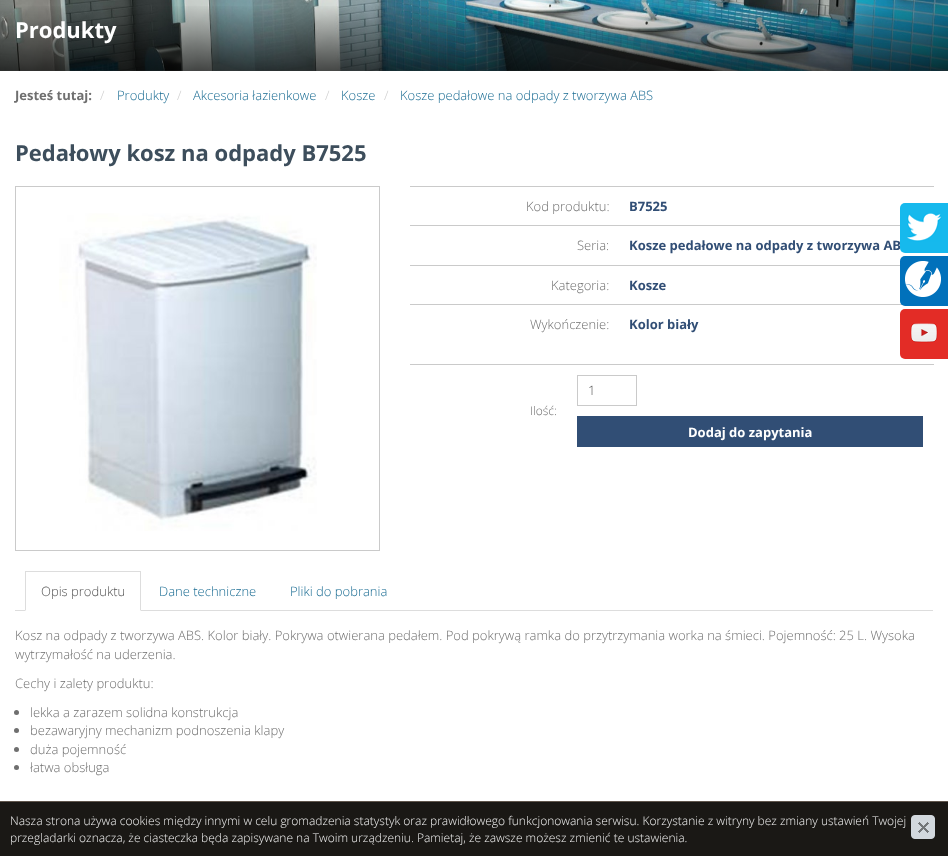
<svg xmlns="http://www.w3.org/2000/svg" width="948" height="856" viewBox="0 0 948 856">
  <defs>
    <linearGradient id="g1" gradientUnits="userSpaceOnUse" x1="474" y1="4" x2="474" y2="71"><stop offset="0" stop-color="rgb(0,0,0)" stop-opacity="0"/><stop offset="1" stop-color="rgb(0,0,0)" stop-opacity="0.65"/></linearGradient>
  </defs>
  <rect width="100%" height="100%" fill="rgb(255,255,255)"/>
  <image x="0" y="0" width="948" height="71" href="pic1.png"/>
  <rect x="0" y="6" width="948" height="65" fill="url(#g1)"/>
  <text x="15" y="38" font-family="Open Sans" font-size="22" font-weight="bold" fill="rgb(255,255,255)">Produkty</text>
  <text x="15" y="100" font-family="Open Sans" font-size="13" font-weight="bold" fill="rgb(111,111,111)">Jesteś tutaj:</text>
  <text x="100" y="100" font-family="Open Sans" font-size="13" font-weight="300" fill="rgb(204,204,204)">/</text>
  <text x="117" y="100" font-family="Open Sans" font-size="13" font-weight="300" fill="rgb(26,108,147)">Produkty</text>
  <text x="177" y="100" font-family="Open Sans" font-size="13" font-weight="300" fill="rgb(204,204,204)">/</text>
  <text x="193" y="100" font-family="Open Sans" font-size="13" font-weight="300" fill="rgb(26,108,147)">Akcesoria łazienkowe</text>
  <text x="325" y="100" font-family="Open Sans" font-size="13" font-weight="300" fill="rgb(204,204,204)">/</text>
  <text x="341" y="100" font-family="Open Sans" font-size="13" font-weight="300" fill="rgb(26,108,147)">Kosze</text>
  <text x="384" y="100" font-family="Open Sans" font-size="13" font-weight="300" fill="rgb(204,204,204)">/</text>
  <text x="400" y="100" font-family="Open Sans" font-size="13" font-weight="300" fill="rgb(26,108,147)">Kosze pedałowe na odpady z tworzywa ABS</text>
  <text x="15" y="161" font-family="Open Sans" font-size="22" font-weight="bold" fill="rgb(61,78,92)">Pedałowy kosz na odpady B7525</text>
  <rect x="15.5" y="186.5" width="364" height="364" fill="none" stroke="rgb(202,202,202)"/>
  <image x="59" y="213" width="258" height="318" href="pic2.png"/>
  <text x="526" y="211" font-family="Open Sans" font-size="13" font-weight="300" fill="rgb(111,111,111)">Kod produktu:</text>
  <rect x="410" y="186" width="524" height="1" fill="rgb(202,202,202)"/>
  <text x="629" y="211" font-family="Open Sans" font-size="13" font-weight="bold" fill="rgb(49,78,117)">B7525</text>
  <text x="577" y="250" font-family="Open Sans" font-size="13" font-weight="300" fill="rgb(111,111,111)">Seria:</text>
  <rect x="410" y="225" width="490" height="1" fill="rgb(202,202,202)"/>
  <text x="629" y="250" font-family="Open Sans" font-size="13" font-weight="bold" fill="rgb(49,78,117)">Kosze pedałowe na odpady z tworzywa AB</text>
  <text x="551" y="290" font-family="Open Sans" font-size="13" font-weight="300" fill="rgb(111,111,111)">Kategoria:</text>
  <rect x="410" y="265" width="490" height="1" fill="rgb(202,202,202)"/>
  <text x="629" y="290" font-family="Open Sans" font-size="13" font-weight="bold" fill="rgb(49,78,117)">Kosze</text>
  <text x="530" y="329" font-family="Open Sans" font-size="13" font-weight="300" fill="rgb(111,111,111)">Wykończenie:</text>
  <rect x="410" y="304" width="492" height="1" fill="rgb(202,202,202)"/>
  <text x="629" y="329" font-family="Open Sans" font-size="13" font-weight="bold" fill="rgb(49,78,117)">Kolor biały</text>
  <text x="530" y="415" font-family="Open Sans" font-size="12" font-weight="300" fill="rgb(111,111,111)">Ilość:</text>
  <rect x="410" y="364" width="524" height="1" fill="rgb(202,202,202)"/>
  <rect x="577.5" y="375.5" width="59" height="30" fill="none" stroke="rgb(202,202,202)"/>
  <text x="588" y="395" font-family="Open Sans" font-size="13" font-weight="300" fill="rgb(85,85,85)">1</text>
  <rect x="577" y="416" width="346" height="31" fill="rgb(49,78,117)"/>
  <text x="688" y="437" font-family="Open Sans" font-size="13" font-weight="bold" fill="rgb(255,255,255)">Dodaj do zapytania</text>
  <rect x="15" y="610" width="918" height="1" fill="rgb(221,221,221)"/>
  <rect x="25" y="610" width="116" height="1" fill="rgb(255,255,255)"/>
  <rect x="25" y="571" width="116" height="1" fill="rgb(221,221,221)"/>
  <path d="M141 571V611L140 610V572Z" fill="rgb(221,221,221)"/>
  <path d="M25 611V571L26 572V610Z" fill="rgb(221,221,221)"/>
  <text x="41" y="596" font-family="Open Sans" font-size="13" font-weight="300" fill="rgb(85,85,85)">Opis produktu</text>
  <g font-family="Open Sans" font-size="13" font-weight="300" fill="rgb(26,108,147)">
    <text x="159" y="596">Dane techniczne</text>
    <text x="290" y="596">Pliki do pobrania</text>
  </g>
  <g font-family="Open Sans" font-size="13" font-weight="300" fill="rgb(111,111,111)">
    <text>
      <tspan x="15" y="640">Kosz na odpady z tworzywa ABS. Kolor biały. Pokrywa otwierana pedałem. Pod pokrywą ramka do przytrzymania worka na śmieci. Pojemność: 25 L. Wysoka</tspan>
      <tspan x="15" y="659">wytrzymałość na uderzenia.</tspan>
    </text>
    <text x="15" y="688">Cechy i zalety produktu:</text>
  </g>
  <circle cx="16.5" cy="712.5" r="2.5" fill="rgb(111,111,111)"/>
  <text x="30" y="717" font-family="Open Sans" font-size="13" font-weight="300" fill="rgb(111,111,111)">lekka a zarazem solidna konstrukcja</text>
  <circle cx="16.5" cy="730.5" r="2.5" fill="rgb(111,111,111)"/>
  <text x="30" y="735" font-family="Open Sans" font-size="13" font-weight="300" fill="rgb(111,111,111)">bezawaryjny mechanizm podnoszenia klapy</text>
  <circle cx="16.5" cy="749.5" r="2.5" fill="rgb(111,111,111)"/>
  <text x="30" y="754" font-family="Open Sans" font-size="13" font-weight="300" fill="rgb(111,111,111)">duża pojemność</text>
  <circle cx="16.5" cy="767.5" r="2.5" fill="rgb(111,111,111)"/>
  <text x="30" y="772" font-family="Open Sans" font-size="13" font-weight="300" fill="rgb(111,111,111)">łatwa obsługa</text>
  <rect x="900" y="203" width="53" height="50" rx="5" fill="rgb(22,185,237)"/>
  <image x="907" y="213" width="35" height="29" href="pic3.png"/>
  <rect x="900" y="256" width="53" height="50" rx="5" fill="rgb(1,113,187)"/>
  <image x="905" y="261" width="36" height="36" href="pic4.png"/>
  <rect x="900" y="309" width="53" height="50" rx="5" fill="rgb(227,44,38)"/>
  <image x="910" y="323" width="28" height="20" href="pic5.png"/>
  <rect x="0" y="802" width="948" height="54" fill="rgb(26,24,21)"/>
  <rect x="0" y="801" width="948" height="1" fill="rgb(95,85,76)"/>
  <text x="10" y="825" font-family="Open Sans" font-size="12" font-weight="300" fill="rgb(241,241,241)">Nasza strona używa cookies między innymi w celu gromadzenia statystyk oraz prawidłowego funkcjonowania serwisu. Korzystanie z witryny bez zmiany ustawień Twojej</text>
  <image x="911" y="815" width="24" height="24" href="pic6.png"/>
  <text x="10" y="842" font-family="Open Sans" font-size="12" font-weight="300" fill="rgb(241,241,241)">przegladarki oznacza, że ciasteczka będa zapisywane na Twoim urządzeniu. Pamietaj, że zawsze możesz zmienić te ustawienia.</text>
</svg>
